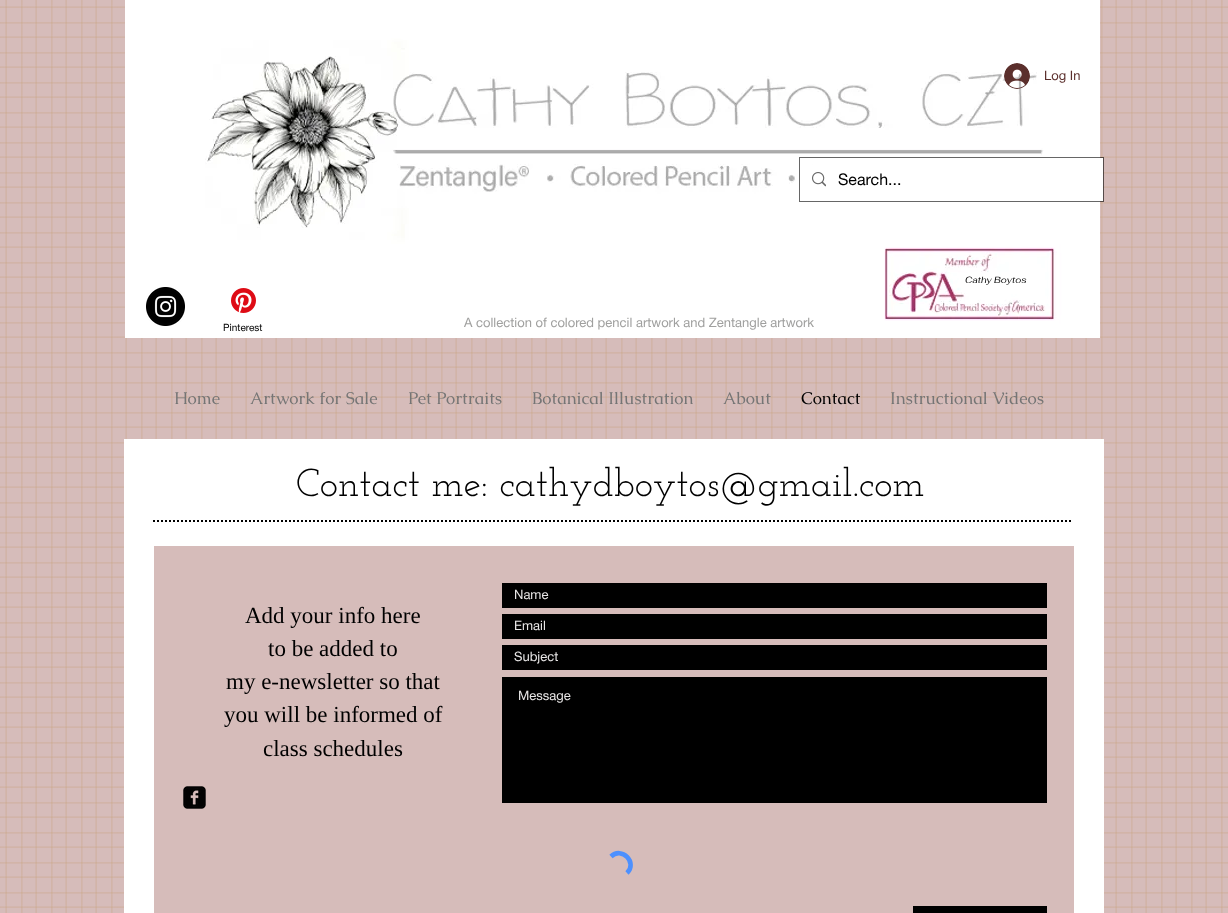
<svg xmlns="http://www.w3.org/2000/svg" width="1228" height="913" viewBox="0 0 1228 913">
  <rect width="100%" height="100%" fill="rgb(214,188,186)"/>
  <image x="0" y="0" width="1228" height="913" href="pic1.png"/>
  <image x="125" y="0" width="975" height="338" href="pic2.png"/>
  <image x="1004" y="63" width="26" height="26" href="pic3.png"/>
  <text x="1044" y="80" font-family="helvetica neue" font-size="13" fill="rgb(91,47,44)">Log In</text>
  <rect x="799.5" y="157.5" width="304" height="44" fill="none" stroke="rgba(0,0,0,0.6)"/>
  <rect x="813" y="158" width="290" height="43" fill="rgb(255,255,255)"/>
  <image x="812" y="172" width="14" height="15" href="pic4.png"/>
  <text x="838" y="185" font-family="helvetica neue" font-size="16" fill="rgb(0,0,0)">Search...</text>
  <text x="965" y="283" font-family="Fahkwang" font-size="9" font-style="italic" fill="rgb(0,0,0)">Cathy Boytos</text>
  <image x="146" y="287" width="39" height="39" href="pic5.png"/>
  <image x="231" y="288" width="25" height="25" href="pic6.png"/>
  <text x="223" y="331" font-family="helvetica neue" font-size="10" fill="rgb(0,0,0)">Pinterest</text>
  <text x="464" y="327" font-family="helvetica neue" font-size="13" fill="rgb(160,160,159)">A collection of colored pencil artwork and Zentangle artwork</text>
  <g font-family="Caudex" font-size="17" fill="rgb(117,117,117)">
    <text x="174" y="404">Home</text>
    <text x="250" y="404">Artwork for Sale</text>
    <text x="408" y="404">Pet Portraits</text>
    <text x="532" y="404">Botanical Illustration</text>
    <text x="723" y="404">About</text>
  </g>
  <text x="801" y="404" font-family="Caudex" font-size="17" fill="rgb(0,0,0)">Contact</text>
  <text x="890" y="404" font-family="Caudex" font-size="17" fill="rgb(117,117,117)">Instructional Videos</text>
  <rect x="124" y="439" width="980" height="474" fill="rgb(255,255,255)"/>
  <text x="296" y="496" font-family="Josefin Slab" font-size="39" fill="rgb(0,0,0)">Contact me: cathydboytos@gmail.com</text>
  <path d="M153 521H1073" fill="none" stroke="rgb(0,0,0)" stroke-width="2" stroke-dasharray="2 2"/>
  <rect x="154" y="546" width="920" height="367" fill="rgb(214,188,186)"/>
  <g font-family="Liberation Serif" font-size="23" fill="rgb(0,0,0)">
    <text x="245" y="623">Add your info here</text>
    <text x="268" y="656">to be added to</text>
    <text x="226" y="689">my e-newsletter so that</text>
    <text x="224" y="722">you will be informed of</text>
    <text x="263" y="756">class schedules</text>
  </g>
  <image x="183" y="786" width="23" height="23" href="pic7.png"/>
  <rect x="502" y="583" width="545" height="25" fill="rgb(0,0,0)"/>
  <text x="514" y="599" font-family="helvetica neue" font-size="13" fill="rgb(232,230,230)">Name</text>
  <rect x="502" y="614" width="545" height="25" fill="rgb(0,0,0)"/>
  <text x="514" y="630" font-family="helvetica neue" font-size="13" fill="rgb(232,230,230)">Email</text>
  <rect x="502" y="645" width="545" height="25" fill="rgb(0,0,0)"/>
  <text x="514" y="661" font-family="helvetica neue" font-size="13" fill="rgb(232,230,230)">Subject</text>
  <rect x="502" y="677" width="545" height="126" fill="rgb(0,0,0)"/>
  <text x="518" y="700" font-family="helvetica neue" font-size="13" fill="rgb(232,230,230)">Message</text>
  <path d="M611 856.5C621.5 846 638 862.5 627 873" fill="none" stroke="rgb(77,144,254)" stroke-width="4.6"/>
  <rect x="913" y="906" width="134" height="7" fill="rgb(0,0,0)"/>
</svg>
